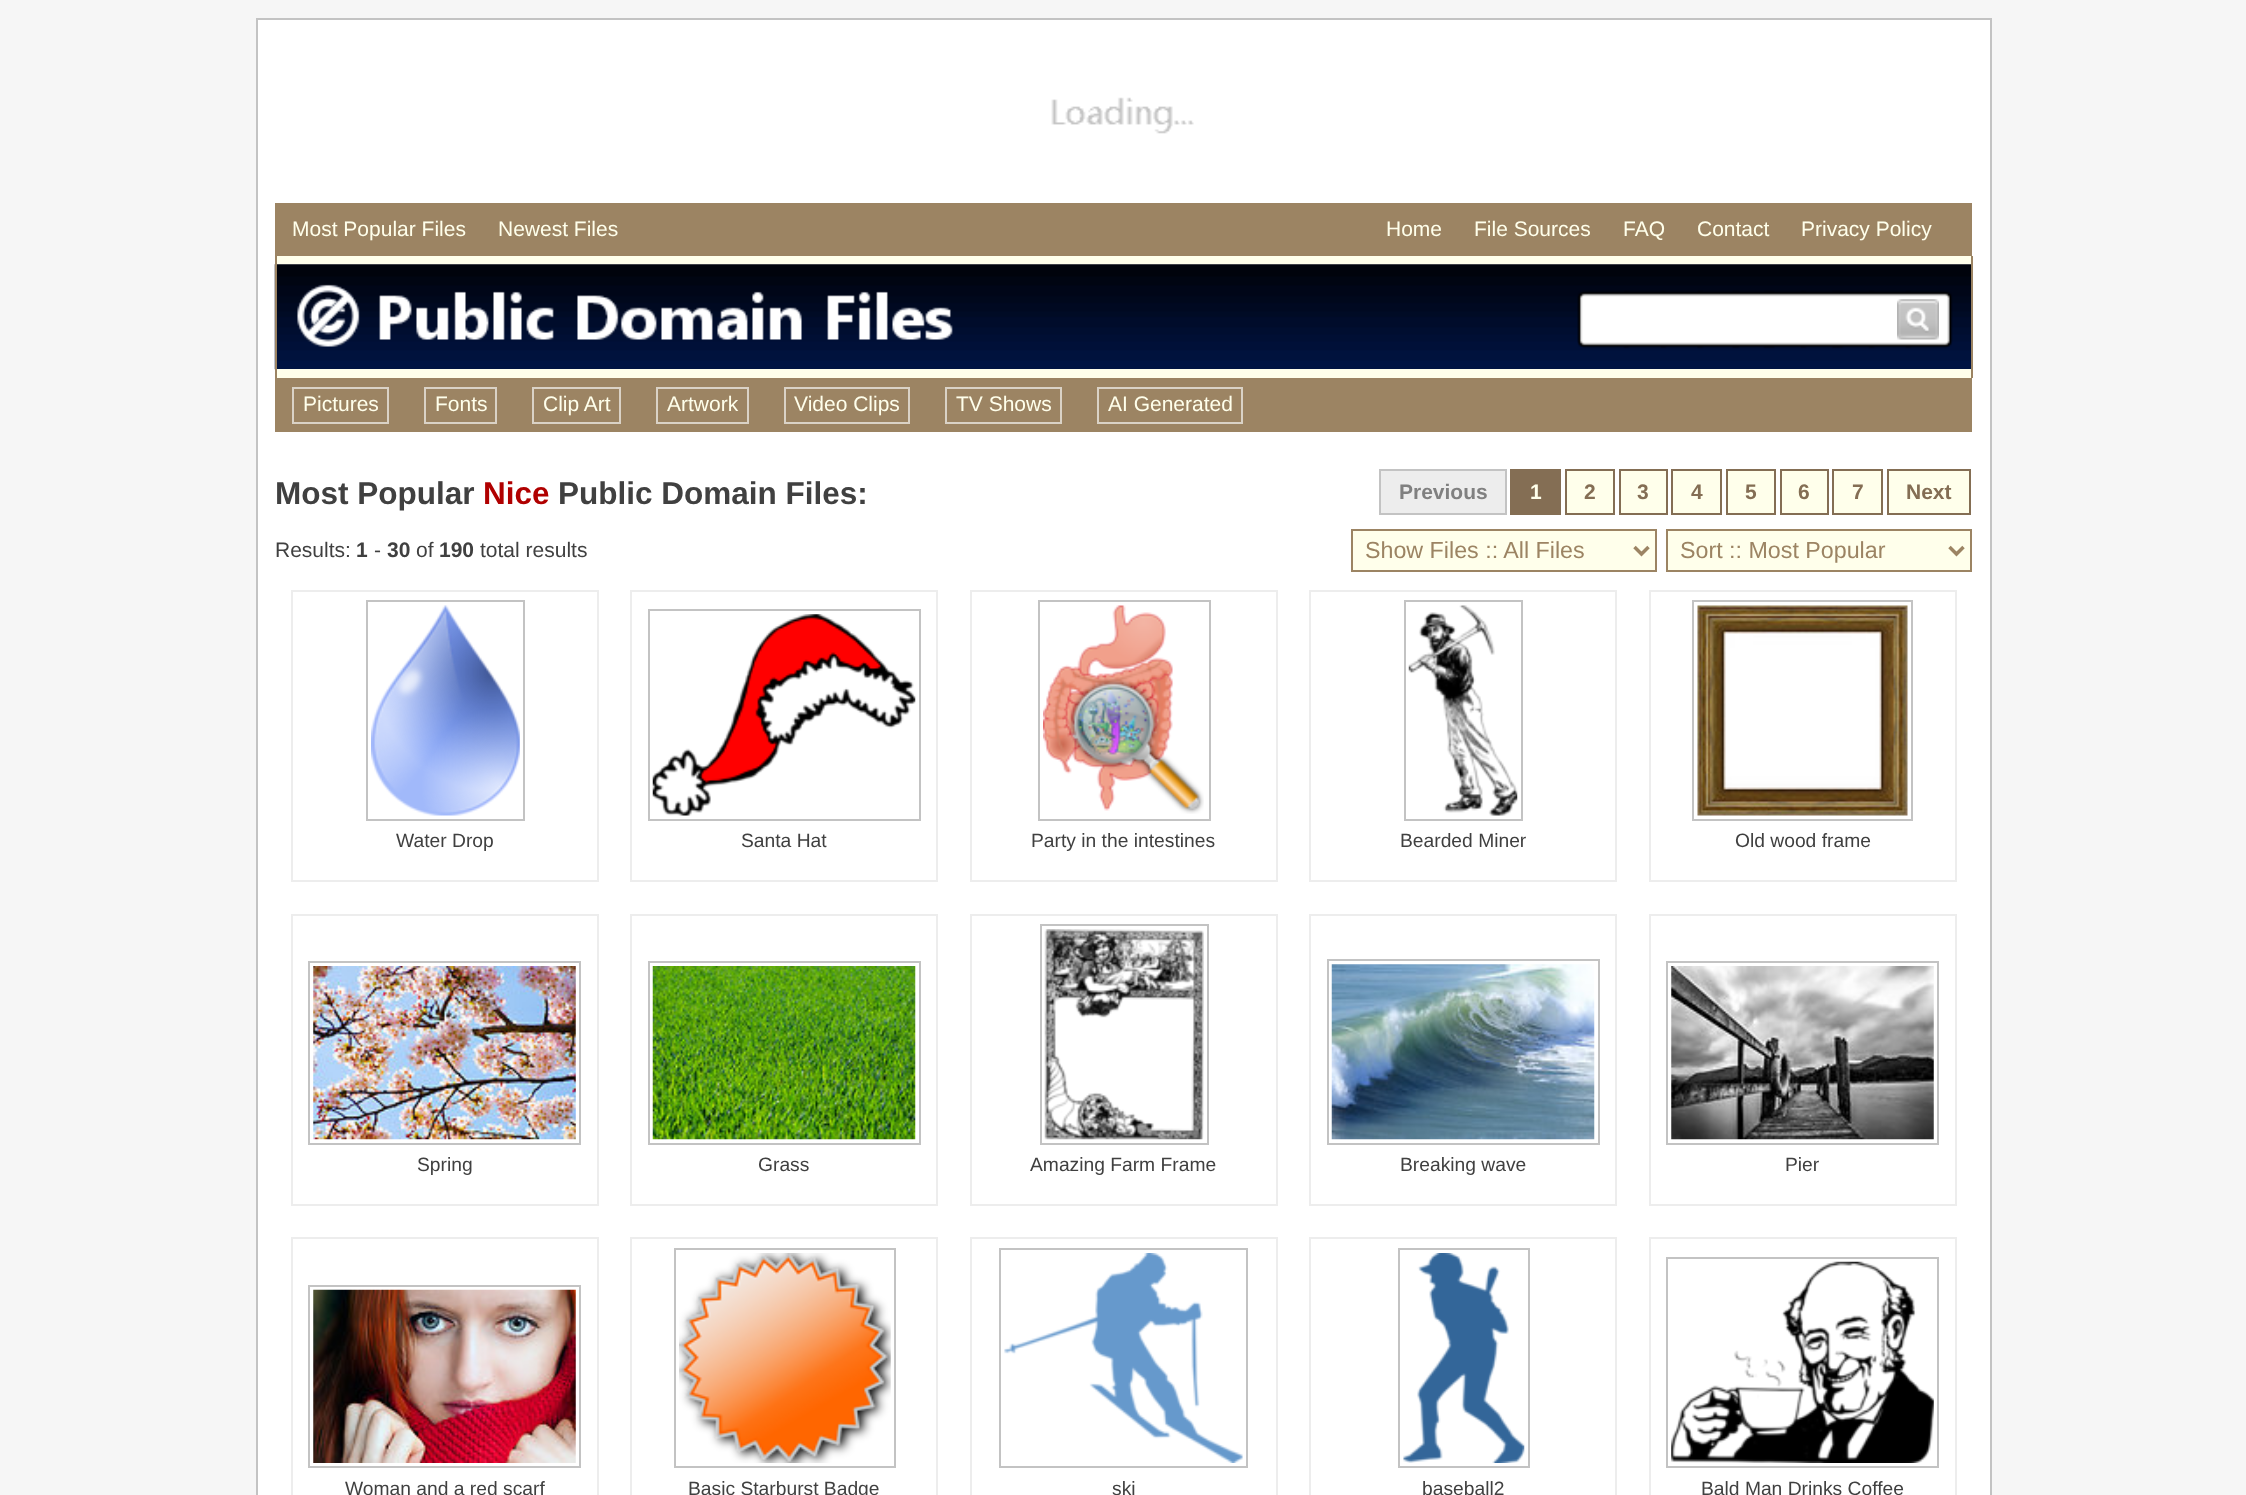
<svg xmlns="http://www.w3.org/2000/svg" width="2246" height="1495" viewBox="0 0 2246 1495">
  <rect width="100%" height="100%" fill="rgb(246,246,246)"/>
  <rect x="257" y="19" width="1734" height="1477" fill="rgb(255,255,255)" stroke="rgb(195,195,195)" stroke-width="2"/>
  <image x="1051" y="97" width="143" height="37" href="pic1.png"/>
  <rect x="275" y="203" width="1697" height="53" fill="rgb(156,132,99)"/>
  <g font-family="Liberation Sans" font-size="21" fill="rgb(255,255,235)">
    <text x="292" y="236">Most Popular Files</text>
    <text x="498" y="236">Newest Files</text>
    <text x="1386" y="236">Home</text>
    <text x="1474" y="236">File Sources</text>
    <text x="1623" y="236">FAQ</text>
    <text x="1697" y="236">Contact</text>
    <text x="1801" y="236">Privacy Policy</text>
  </g>
  <rect x="275" y="256" width="1697" height="8" fill="rgb(255,255,235)"/>
  <rect x="1971" y="256" width="2" height="122" fill="rgb(156,132,99)"/>
  <rect x="275" y="256" width="2" height="8" fill="rgb(156,132,99)"/>
  <image x="274" y="264" width="1697" height="106" href="pic2.png"/>
  <rect x="275" y="264" width="2" height="114" fill="rgb(156,132,99)"/>
  <image x="297" y="284" width="656" height="63" href="pic3.png"/>
  <image x="1577" y="290" width="376" height="59" href="pic4.png"/>
  <image x="1897" y="299" width="42" height="41" href="pic5.png"/>
  <rect x="277" y="369" width="1694" height="9" fill="rgb(255,255,235)"/>
  <rect x="275" y="378" width="1697" height="54" fill="rgb(156,132,99)"/>
  <rect x="293" y="388" width="95" height="35" fill="none" stroke="rgb(218,210,198)" stroke-width="2"/>
  <text x="303" y="411" font-family="Liberation Sans" font-size="21" fill="rgb(255,255,235)">Pictures</text>
  <rect x="425" y="388" width="71" height="35" fill="none" stroke="rgb(218,210,198)" stroke-width="2"/>
  <text x="435" y="411" font-family="Liberation Sans" font-size="21" fill="rgb(255,255,235)">Fonts</text>
  <rect x="533" y="388" width="87" height="35" fill="none" stroke="rgb(218,210,198)" stroke-width="2"/>
  <text x="543" y="411" font-family="Liberation Sans" font-size="21" fill="rgb(255,255,235)">Clip Art</text>
  <rect x="657" y="388" width="91" height="35" fill="none" stroke="rgb(218,210,198)" stroke-width="2"/>
  <text x="667" y="411" font-family="Liberation Sans" font-size="21" fill="rgb(255,255,235)">Artwork</text>
  <rect x="785" y="388" width="124" height="35" fill="none" stroke="rgb(218,210,198)" stroke-width="2"/>
  <text x="794" y="411" font-family="Liberation Sans" font-size="21" fill="rgb(255,255,235)">Video Clips</text>
  <rect x="946" y="388" width="115" height="35" fill="none" stroke="rgb(218,210,198)" stroke-width="2"/>
  <text x="956" y="411" font-family="Liberation Sans" font-size="21" fill="rgb(255,255,235)">TV Shows</text>
  <rect x="1098" y="388" width="144" height="35" fill="none" stroke="rgb(218,210,198)" stroke-width="2"/>
  <text x="1108" y="411" font-family="Liberation Sans" font-size="21" fill="rgb(255,255,235)">AI Generated</text>
  <text x="275" y="504" font-family="Liberation Sans" font-size="31.5" font-weight="bold" fill="rgb(64,64,64)">Most Popular</text>
  <text x="483" y="504" font-family="Liberation Sans" font-size="31.5" font-weight="bold" fill="rgb(176,0,0)">Nice</text>
  <text x="558" y="504" font-family="Liberation Sans" font-size="31.5" font-weight="bold" fill="rgb(64,64,64)">Public Domain Files:</text>
  <rect x="1380" y="470" width="126" height="44" fill="rgb(237,237,237)" stroke="rgb(195,195,195)" stroke-width="2"/>
  <text x="1399" y="499" font-family="Liberation Sans" font-size="21" font-weight="bold" fill="rgb(128,128,128)">Previous</text>
  <rect x="1510" y="469" width="51" height="46" fill="rgb(132,110,84)"/>
  <text x="1530" y="499" font-family="Liberation Sans" font-size="21" font-weight="bold" fill="rgb(255,255,235)">1</text>
  <rect x="1566" y="470" width="48" height="44" fill="rgb(255,255,235)" stroke="rgb(132,110,84)" stroke-width="2"/>
  <text x="1584" y="499" font-family="Liberation Sans" font-size="21" font-weight="bold" fill="rgb(132,110,84)">2</text>
  <rect x="1620" y="470" width="47" height="44" fill="rgb(255,255,235)" stroke="rgb(132,110,84)" stroke-width="2"/>
  <text x="1637" y="499" font-family="Liberation Sans" font-size="21" font-weight="bold" fill="rgb(132,110,84)">3</text>
  <rect x="1672" y="470" width="49" height="44" fill="rgb(255,255,235)" stroke="rgb(132,110,84)" stroke-width="2"/>
  <text x="1691" y="499" font-family="Liberation Sans" font-size="21" font-weight="bold" fill="rgb(132,110,84)">4</text>
  <rect x="1727" y="470" width="48" height="44" fill="rgb(255,255,235)" stroke="rgb(132,110,84)" stroke-width="2"/>
  <text x="1745" y="499" font-family="Liberation Sans" font-size="21" font-weight="bold" fill="rgb(132,110,84)">5</text>
  <rect x="1781" y="470" width="47" height="44" fill="rgb(255,255,235)" stroke="rgb(132,110,84)" stroke-width="2"/>
  <text x="1798" y="499" font-family="Liberation Sans" font-size="21" font-weight="bold" fill="rgb(132,110,84)">6</text>
  <rect x="1833" y="470" width="49" height="44" fill="rgb(255,255,235)" stroke="rgb(132,110,84)" stroke-width="2"/>
  <text x="1852" y="499" font-family="Liberation Sans" font-size="21" font-weight="bold" fill="rgb(132,110,84)">7</text>
  <rect x="1888" y="470" width="82" height="44" fill="rgb(255,255,235)" stroke="rgb(132,110,84)" stroke-width="2"/>
  <text x="1906" y="499" font-family="Liberation Sans" font-size="21" font-weight="bold" fill="rgb(132,110,84)">Next</text>
  <text x="275" y="557" font-family="Liberation Sans" font-size="21" fill="rgb(64,64,64)">Results:</text>
  <text x="356" y="557" font-family="Liberation Sans" font-size="21" font-weight="bold" fill="rgb(64,64,64)">1</text>
  <text x="374" y="557" font-family="Liberation Sans" font-size="21" fill="rgb(64,64,64)">-</text>
  <text x="387" y="557" font-family="Liberation Sans" font-size="21" font-weight="bold" fill="rgb(64,64,64)">30</text>
  <text x="416" y="557" font-family="Liberation Sans" font-size="21" fill="rgb(64,64,64)">of</text>
  <text x="439" y="557" font-family="Liberation Sans" font-size="21" font-weight="bold" fill="rgb(64,64,64)">190</text>
  <text x="480" y="557" font-family="Liberation Sans" font-size="21" fill="rgb(64,64,64)">total results</text>
  <rect x="1352" y="530" width="304" height="41" fill="rgb(255,255,235)" stroke="rgb(156,132,99)" stroke-width="2"/>
  <path d="M1634.5 547L1641.5 554L1648.5 547" fill="none" stroke="rgb(156,132,99)" stroke-width="3.5"/>
  <text x="1365" y="558" font-family="Liberation Sans" font-size="23.25" fill="rgb(156,132,99)">Show Files :: All Files</text>
  <rect x="1667" y="530" width="304" height="41" fill="rgb(255,255,235)" stroke="rgb(156,132,99)" stroke-width="2"/>
  <path d="M1949.5 547L1956.5 554L1963.5 547" fill="none" stroke="rgb(156,132,99)" stroke-width="3.5"/>
  <text x="1680" y="558" font-family="Liberation Sans" font-size="23.25" fill="rgb(156,132,99)">Sort :: Most Popular</text>
  <rect x="292" y="591" width="306" height="290" fill="none" stroke="rgb(237,237,237)" stroke-width="2"/>
  <rect x="367" y="601" width="157" height="219" fill="none" stroke="rgb(195,195,195)" stroke-width="2"/>
  <image x="371" y="605" width="149" height="211" href="pic6.png"/>
  <text x="396" y="847" font-family="Liberation Sans" font-size="19.25" fill="rgb(64,64,64)">Water Drop</text>
  <rect x="631" y="591" width="306" height="290" fill="none" stroke="rgb(237,237,237)" stroke-width="2"/>
  <rect x="649" y="610" width="271" height="210" fill="none" stroke="rgb(195,195,195)" stroke-width="2"/>
  <image x="652" y="614" width="264" height="202" href="pic7.png"/>
  <text x="741" y="847" font-family="Liberation Sans" font-size="19.25" fill="rgb(64,64,64)">Santa Hat</text>
  <rect x="971" y="591" width="306" height="290" fill="none" stroke="rgb(237,237,237)" stroke-width="2"/>
  <rect x="1039" y="601" width="171" height="219" fill="none" stroke="rgb(195,195,195)" stroke-width="2"/>
  <image x="1043" y="605" width="161" height="209" href="pic8.png"/>
  <text x="1031" y="847" font-family="Liberation Sans" font-size="19.25" fill="rgb(64,64,64)">Party in the intestines</text>
  <rect x="1310" y="591" width="306" height="290" fill="none" stroke="rgb(237,237,237)" stroke-width="2"/>
  <rect x="1405" y="601" width="117" height="219" fill="none" stroke="rgb(195,195,195)" stroke-width="2"/>
  <image x="1408" y="605" width="110" height="211" href="pic9.png"/>
  <text x="1400" y="847" font-family="Liberation Sans" font-size="19.25" fill="rgb(64,64,64)">Bearded Miner</text>
  <rect x="1650" y="591" width="306" height="290" fill="none" stroke="rgb(237,237,237)" stroke-width="2"/>
  <rect x="1693" y="601" width="219" height="219" fill="none" stroke="rgb(195,195,195)" stroke-width="2"/>
  <image x="1697" y="605" width="211" height="211" href="pic10.png"/>
  <text x="1735" y="847" font-family="Liberation Sans" font-size="19.25" fill="rgb(64,64,64)">Old wood frame</text>
  <rect x="292" y="915" width="306" height="290" fill="none" stroke="rgb(237,237,237)" stroke-width="2"/>
  <rect x="309" y="962" width="271" height="182" fill="none" stroke="rgb(195,195,195)" stroke-width="2"/>
  <image x="313" y="966" width="263" height="174" href="pic11.png"/>
  <text x="417" y="1171" font-family="Liberation Sans" font-size="19.25" fill="rgb(64,64,64)">Spring</text>
  <rect x="631" y="915" width="306" height="290" fill="none" stroke="rgb(237,237,237)" stroke-width="2"/>
  <rect x="649" y="962" width="271" height="182" fill="none" stroke="rgb(195,195,195)" stroke-width="2"/>
  <image x="652" y="966" width="264" height="174" href="pic12.png"/>
  <text x="758" y="1171" font-family="Liberation Sans" font-size="19.25" fill="rgb(64,64,64)">Grass</text>
  <rect x="971" y="915" width="306" height="290" fill="none" stroke="rgb(237,237,237)" stroke-width="2"/>
  <rect x="1041" y="925" width="167" height="219" fill="none" stroke="rgb(195,195,195)" stroke-width="2"/>
  <image x="1044" y="929" width="160" height="211" href="pic13.png"/>
  <text x="1030" y="1171" font-family="Liberation Sans" font-size="19.25" fill="rgb(64,64,64)">Amazing Farm Frame</text>
  <rect x="1310" y="915" width="306" height="290" fill="none" stroke="rgb(237,237,237)" stroke-width="2"/>
  <rect x="1328" y="960" width="271" height="184" fill="none" stroke="rgb(195,195,195)" stroke-width="2"/>
  <image x="1331" y="964" width="264" height="176" href="pic14.png"/>
  <text x="1400" y="1171" font-family="Liberation Sans" font-size="19.25" fill="rgb(64,64,64)">Breaking wave</text>
  <rect x="1650" y="915" width="306" height="290" fill="none" stroke="rgb(237,237,237)" stroke-width="2"/>
  <rect x="1667" y="962" width="271" height="182" fill="none" stroke="rgb(195,195,195)" stroke-width="2"/>
  <image x="1671" y="966" width="263" height="174" href="pic15.png"/>
  <text x="1785" y="1171" font-family="Liberation Sans" font-size="19.25" fill="rgb(64,64,64)">Pier</text>
  <rect x="292" y="1238" width="306" height="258" fill="none" stroke="rgb(237,237,237)" stroke-width="2"/>
  <rect x="309" y="1286" width="271" height="181" fill="none" stroke="rgb(195,195,195)" stroke-width="2"/>
  <image x="313" y="1289" width="263" height="174" href="pic16.png"/>
  <text x="345" y="1495" font-family="Liberation Sans" font-size="19.25" fill="rgb(64,64,64)">Woman and a red scarf</text>
  <rect x="631" y="1238" width="306" height="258" fill="none" stroke="rgb(237,237,237)" stroke-width="2"/>
  <rect x="675" y="1249" width="220" height="218" fill="none" stroke="rgb(195,195,195)" stroke-width="2"/>
  <image x="679" y="1253" width="212" height="210" href="pic17.png"/>
  <text x="688" y="1495" font-family="Liberation Sans" font-size="19.25" fill="rgb(64,64,64)">Basic Starburst Badge</text>
  <rect x="971" y="1238" width="306" height="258" fill="none" stroke="rgb(237,237,237)" stroke-width="2"/>
  <rect x="1000" y="1249" width="247" height="218" fill="none" stroke="rgb(195,195,195)" stroke-width="2"/>
  <image x="1004" y="1253" width="239" height="210" href="pic18.png"/>
  <text x="1112" y="1495" font-family="Liberation Sans" font-size="19.25" fill="rgb(64,64,64)">ski</text>
  <rect x="1310" y="1238" width="306" height="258" fill="none" stroke="rgb(237,237,237)" stroke-width="2"/>
  <rect x="1399" y="1249" width="130" height="218" fill="none" stroke="rgb(195,195,195)" stroke-width="2"/>
  <image x="1403" y="1253" width="122" height="210" href="pic19.png"/>
  <text x="1422" y="1495" font-family="Liberation Sans" font-size="19.25" fill="rgb(64,64,64)">baseball2</text>
  <rect x="1650" y="1238" width="306" height="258" fill="none" stroke="rgb(237,237,237)" stroke-width="2"/>
  <rect x="1667" y="1258" width="271" height="209" fill="none" stroke="rgb(195,195,195)" stroke-width="2"/>
  <image x="1671" y="1261" width="263" height="202" href="pic20.png"/>
  <text x="1701" y="1495" font-family="Liberation Sans" font-size="19.25" fill="rgb(64,64,64)">Bald Man Drinks Coffee</text>
</svg>
